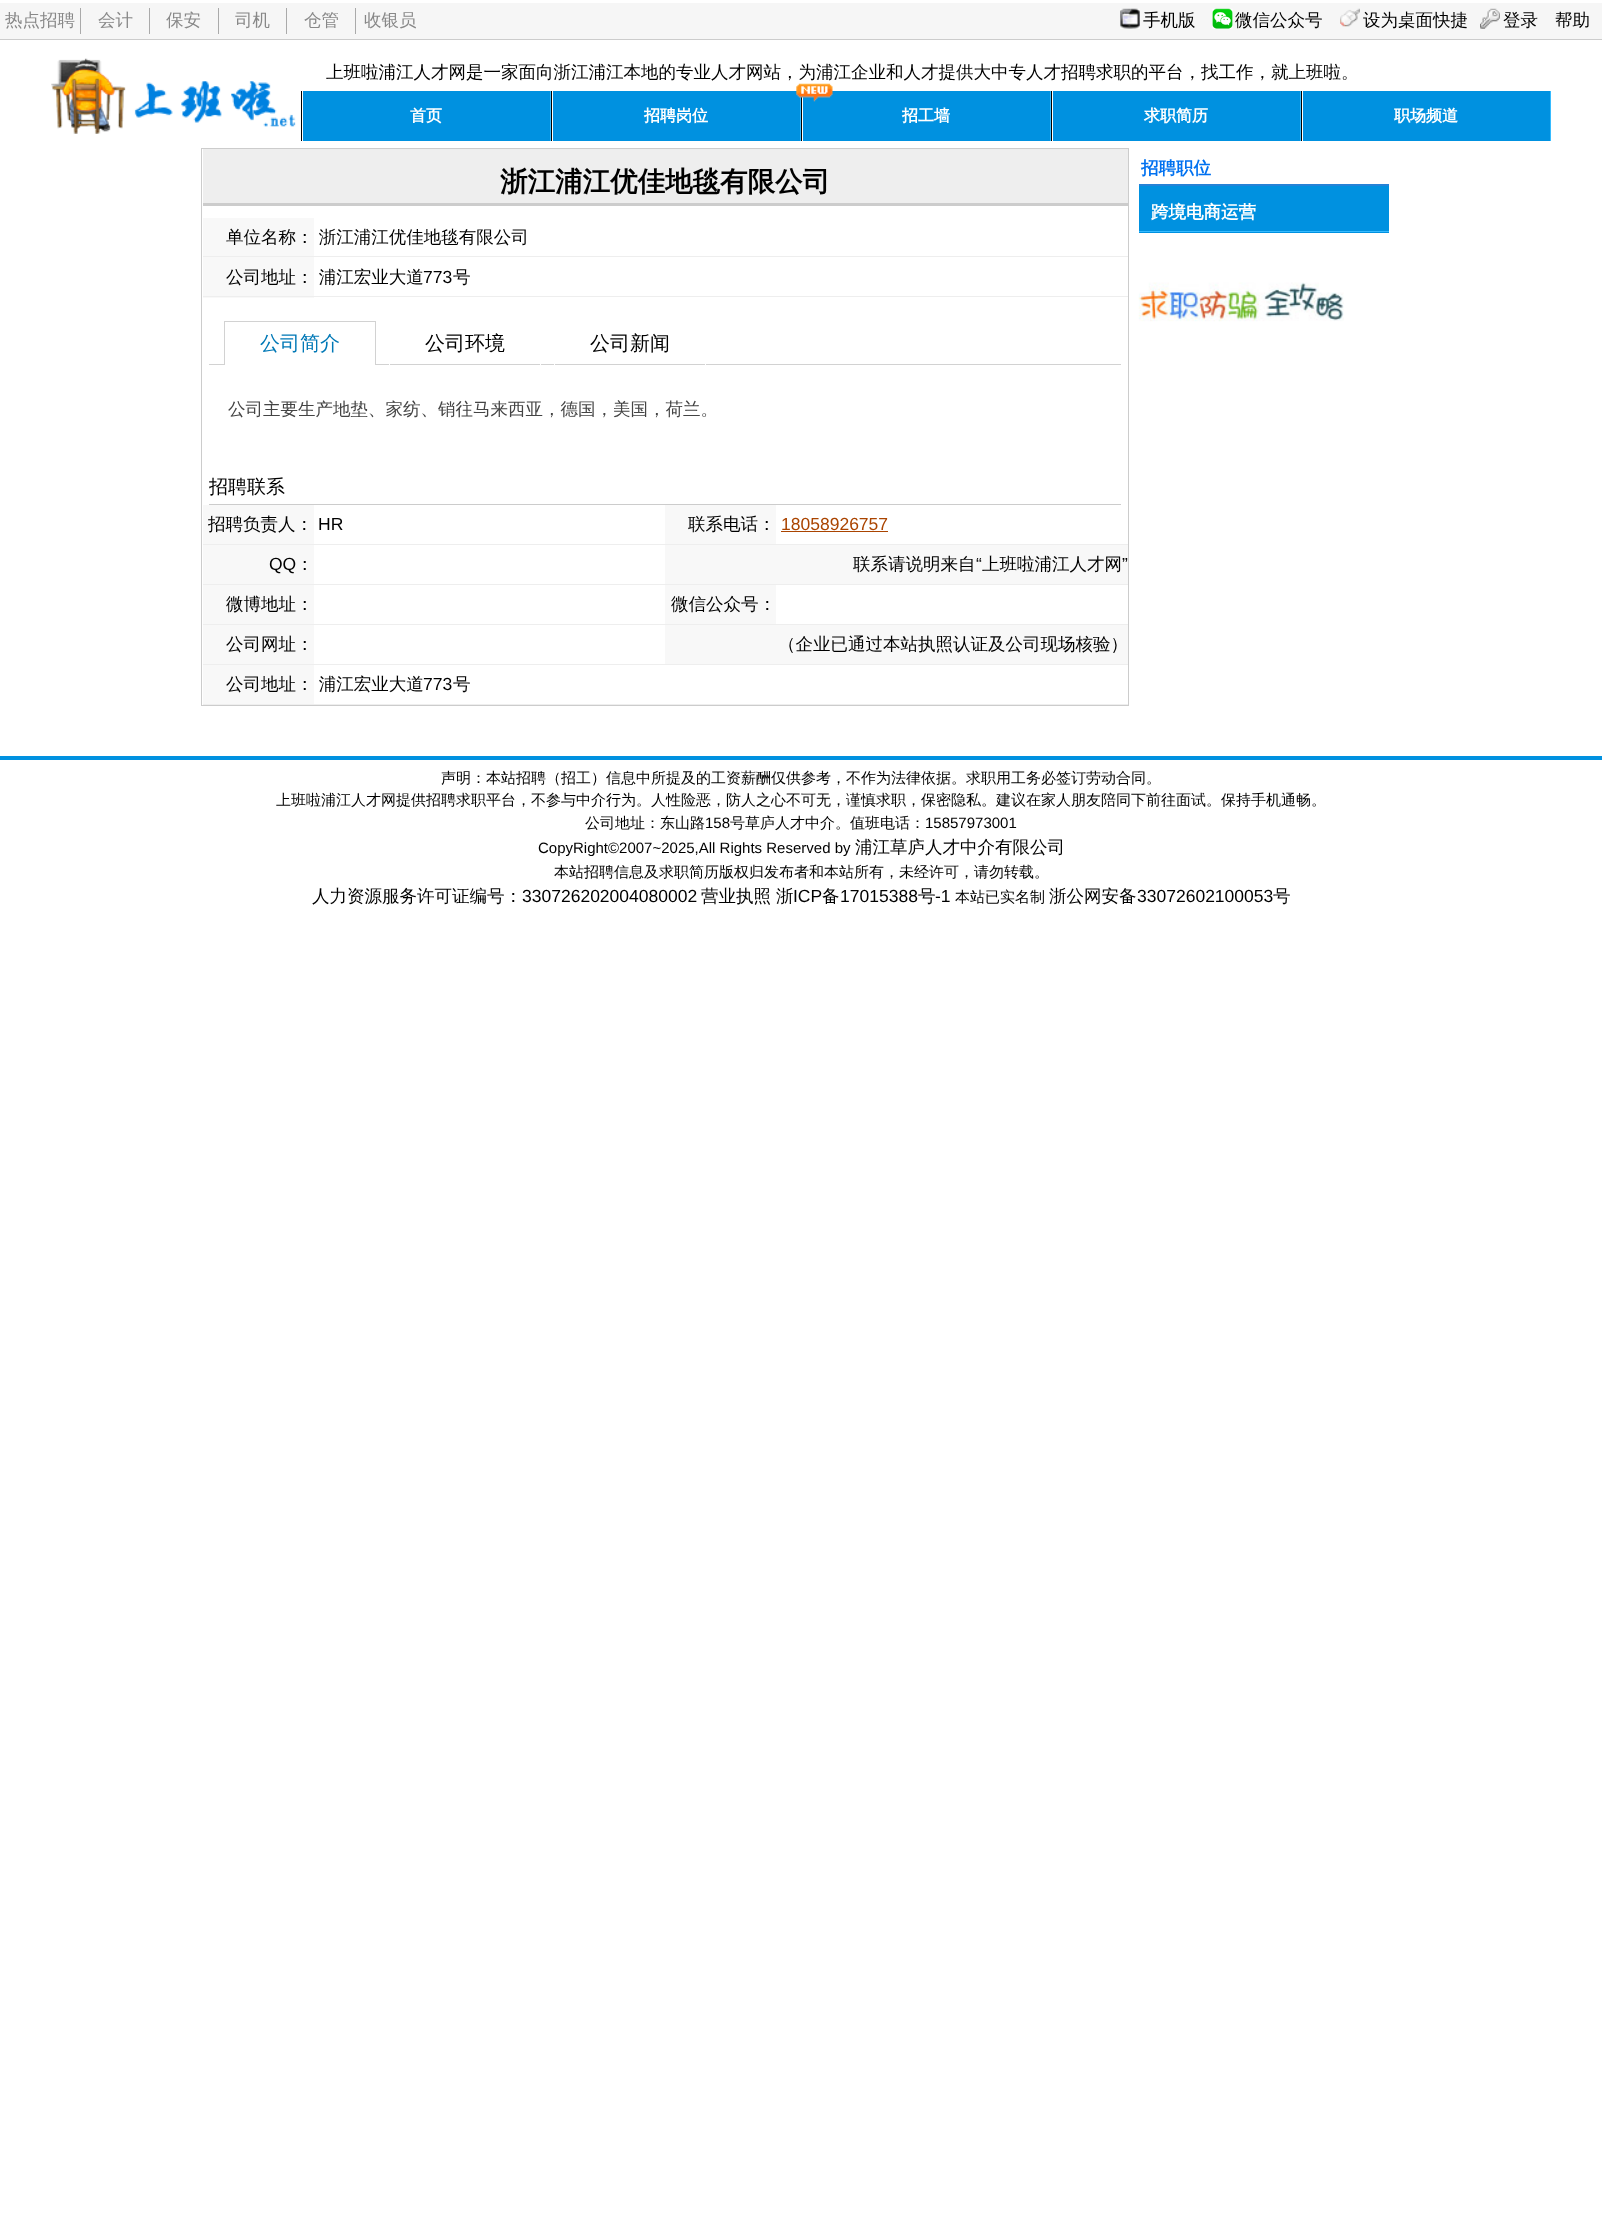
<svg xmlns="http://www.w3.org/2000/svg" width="1602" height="2214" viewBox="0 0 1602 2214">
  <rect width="100%" height="100%" fill="rgb(255,255,255)"/>
  <rect x="0" y="3" width="1602" height="36" fill="rgb(246,246,246)"/>
  <rect x="0" y="39" width="1602" height="1" fill="rgb(204,204,204)"/>
  <text x="5" y="26" font-family="WenQuanYi Zen Hei" font-size="17.5" font-weight="500" fill="rgb(136,136,136)">热点招聘</text>
  <rect x="80" y="8" width="1" height="26" fill="rgb(170,170,170)"/>
  <text x="98" y="26" font-family="WenQuanYi Zen Hei" font-size="17.5" font-weight="500" fill="rgb(136,136,136)">会计</text>
  <rect x="149" y="8" width="1" height="26" fill="rgb(170,170,170)"/>
  <text x="166" y="26" font-family="WenQuanYi Zen Hei" font-size="17.5" font-weight="500" fill="rgb(136,136,136)">保安</text>
  <rect x="218" y="8" width="1" height="26" fill="rgb(170,170,170)"/>
  <text x="235" y="26" font-family="WenQuanYi Zen Hei" font-size="17.5" font-weight="500" fill="rgb(136,136,136)">司机</text>
  <rect x="286" y="8" width="1" height="26" fill="rgb(170,170,170)"/>
  <text x="304" y="26" font-family="WenQuanYi Zen Hei" font-size="17.5" font-weight="500" fill="rgb(136,136,136)">仓管</text>
  <rect x="355" y="8" width="1" height="26" fill="rgb(170,170,170)"/>
  <text x="364" y="26" font-family="WenQuanYi Zen Hei" font-size="17.5" font-weight="500" fill="rgb(136,136,136)">收银员</text>
  <image x="1120" y="8" width="20" height="21" href="pic1.png"/>
  <text x="1143" y="26" font-family="WenQuanYi Zen Hei" font-size="17.5" font-weight="500" fill="rgb(0,0,0)">手机版</text>
  <image x="1212" y="8" width="21" height="21" href="pic2.png"/>
  <text x="1235" y="26" font-family="WenQuanYi Zen Hei" font-size="17.5" font-weight="500" fill="rgb(0,0,0)">微信公众号</text>
  <image x="1340" y="8" width="20" height="19" href="pic3.png"/>
  <text x="1363" y="26" font-family="WenQuanYi Zen Hei" font-size="17.5" font-weight="500" fill="rgb(0,0,0)">设为桌面快捷</text>
  <image x="1480" y="8" width="20" height="21" href="pic4.png"/>
  <g font-family="WenQuanYi Zen Hei" font-size="17.5" font-weight="500" fill="rgb(0,0,0)">
    <text x="1503" y="26">登录</text>
    <text x="1555" y="26">帮助</text>
  </g>
  <image x="51" y="58" width="245" height="76" href="pic5.png"/>
  <text x="326" y="78" font-family="WenQuanYi Zen Hei" font-size="17.5" font-weight="500" fill="rgb(0,0,0)">上班啦浦江人才网是一家面向浙江浦江本地的专业人才网站，为浦江企业和人才提供大中专人才招聘求职的平台，找工作，就上班啦。</text>
  <rect x="553" y="91" width="247" height="50" fill="rgb(0,145,224)"/>
  <rect x="800" y="91" width="1" height="50" fill="rgb(55,187,255)"/>
  <rect x="801" y="91" width="1" height="50" fill="rgb(0,0,0)"/>
  <rect x="803" y="91" width="247" height="50" fill="rgb(0,145,224)"/>
  <image x="796" y="83" width="37" height="19" href="pic6.png"/>
  <rect x="301" y="91" width="1" height="50" fill="rgb(0,0,0)"/>
  <rect x="303" y="91" width="247" height="50" fill="rgb(0,145,224)"/>
  <rect x="550" y="91" width="1" height="50" fill="rgb(55,187,255)"/>
  <text x="410" y="121" font-family="WenQuanYi Zen Hei" font-size="16" font-weight="bold" fill="rgb(255,255,255)">首页</text>
  <rect x="551" y="91" width="1" height="50" fill="rgb(0,0,0)"/>
  <text x="644" y="121" font-family="WenQuanYi Zen Hei" font-size="16" font-weight="bold" fill="rgb(255,255,255)">招聘岗位</text>
  <rect x="1050" y="91" width="1" height="50" fill="rgb(55,187,255)"/>
  <text x="902" y="121" font-family="WenQuanYi Zen Hei" font-size="16" font-weight="bold" fill="rgb(255,255,255)">招工墙</text>
  <rect x="1051" y="91" width="1" height="50" fill="rgb(0,0,0)"/>
  <rect x="1053" y="91" width="247" height="50" fill="rgb(0,145,224)"/>
  <rect x="1300" y="91" width="1" height="50" fill="rgb(55,187,255)"/>
  <text x="1144" y="121" font-family="WenQuanYi Zen Hei" font-size="16" font-weight="bold" fill="rgb(255,255,255)">求职简历</text>
  <rect x="1301" y="91" width="1" height="50" fill="rgb(0,0,0)"/>
  <rect x="1303" y="91" width="247" height="50" fill="rgb(0,145,224)"/>
  <rect x="1550" y="91" width="1" height="50" fill="rgb(55,187,255)"/>
  <text x="1394" y="121" font-family="WenQuanYi Zen Hei" font-size="16" font-weight="bold" fill="rgb(255,255,255)">职场频道</text>
  <rect x="201.5" y="148.5" width="927" height="557" fill="none" stroke="rgb(204,204,204)"/>
  <rect x="203" y="149" width="925" height="54" fill="rgb(238,238,238)"/>
  <rect x="203" y="203" width="925" height="3" fill="rgb(204,204,204)"/>
  <text x="500" y="191" font-family="WenQuanYi Zen Hei" font-size="27.5" font-weight="bold" fill="rgb(0,0,0)">浙江浦江优佳地毯有限公司</text>
  <rect x="314" y="256" width="814" height="1" fill="rgb(238,238,238)"/>
  <rect x="203" y="218" width="111" height="80" fill="rgb(248,248,248)"/>
  <rect x="203" y="256" width="111" height="1" fill="rgb(238,238,238)"/>
  <text x="226" y="243" font-family="WenQuanYi Zen Hei" font-size="17.5" font-weight="500" fill="rgb(0,0,0)">单位名称： 浙江浦江优佳地毯有限公司</text>
  <rect x="203" y="296" width="925" height="1" fill="rgb(238,238,238)"/>
  <text x="226" y="283" font-family="WenQuanYi Zen Hei" font-size="17.5" font-weight="500" fill="rgb(0,0,0)">公司地址： 浦江宏业大道</text>
  <text x="423" y="283" font-family="Liberation Sans" font-size="17.5" fill="rgb(0,0,0)">773</text>
  <text x="453" y="283" font-family="WenQuanYi Zen Hei" font-size="17.5" font-weight="500" fill="rgb(0,0,0)">号</text>
  <rect x="209" y="364" width="912" height="1" fill="rgb(210,210,210)"/>
  <rect x="225" y="364" width="150" height="1" fill="rgb(255,255,255)"/>
  <rect x="224" y="321" width="152" height="1" fill="rgb(210,210,210)"/>
  <rect x="375" y="321" width="1" height="44" fill="rgb(210,210,210)"/>
  <rect x="224" y="321" width="1" height="44" fill="rgb(210,210,210)"/>
  <text x="260" y="350" font-family="WenQuanYi Zen Hei" font-size="20" font-weight="500" fill="rgb(0,120,182)">公司简介</text>
  <rect x="540" y="364" width="1" height="1" fill="rgb(255,255,255)"/>
  <rect x="389" y="364" width="1" height="1" fill="rgb(255,255,255)"/>
  <text x="425" y="350" font-family="WenQuanYi Zen Hei" font-size="20" font-weight="500" fill="rgb(0,0,0)">公司环境</text>
  <rect x="705" y="364" width="1" height="1" fill="rgb(255,255,255)"/>
  <rect x="554" y="364" width="1" height="1" fill="rgb(255,255,255)"/>
  <text x="590" y="350" font-family="WenQuanYi Zen Hei" font-size="20" font-weight="500" fill="rgb(0,0,0)">公司新闻</text>
  <text x="228" y="415" font-family="WenQuanYi Zen Hei" font-size="17.5" font-weight="500" fill="rgb(68,68,68)">公司主要生产地垫、家纺、销往马来西亚，德国，美国，荷兰。</text>
  <rect x="209" y="504" width="912" height="1" fill="rgb(204,204,204)"/>
  <text x="209" y="493" font-family="WenQuanYi Zen Hei" font-size="19" font-weight="500" fill="rgb(0,0,0)">招聘联系</text>
  <rect x="203" y="544" width="925" height="1" fill="rgb(238,238,238)"/>
  <rect x="203" y="505" width="111" height="39" fill="rgb(248,248,248)"/>
  <text x="208" y="530" font-family="WenQuanYi Zen Hei" font-size="17.5" font-weight="500" fill="rgb(0,0,0)">招聘负责人：</text>
  <text x="318" y="530" font-family="Liberation Sans" font-size="17.5" fill="rgb(0,0,0)">HR</text>
  <rect x="665" y="505" width="111" height="39" fill="rgb(248,248,248)"/>
  <text x="688" y="530" font-family="WenQuanYi Zen Hei" font-size="17.5" font-weight="500" fill="rgb(0,0,0)">联系电话：</text>
  <text x="781" y="530" font-family="Liberation Sans" font-size="17.5" fill="rgb(170,68,0)">18058926757</text>
  <rect x="781" y="531" width="107" height="1" fill="rgb(170,68,0)"/>
  <rect x="203" y="584" width="925" height="1" fill="rgb(238,238,238)"/>
  <rect x="203" y="545" width="111" height="39" fill="rgb(248,248,248)"/>
  <text x="269" y="570" font-family="Liberation Sans" font-size="17.5" fill="rgb(0,0,0)">QQ</text>
  <text x="296" y="570" font-family="WenQuanYi Zen Hei" font-size="17.5" font-weight="500" fill="rgb(0,0,0)">：</text>
  <rect x="665" y="545" width="463" height="39" fill="rgb(248,248,248)"/>
  <text x="853" y="570" font-family="WenQuanYi Zen Hei" font-size="17.5" font-weight="500" fill="rgb(0,0,0)">联系请说明来自</text>
  <text x="976" y="570" font-family="Liberation Sans" font-size="17.5" fill="rgb(0,0,0)">“</text>
  <text x="982" y="570" font-family="WenQuanYi Zen Hei" font-size="17.5" font-weight="500" fill="rgb(0,0,0)">上班啦浦江人才网</text>
  <text x="1122" y="570" font-family="Liberation Sans" font-size="17.5" fill="rgb(0,0,0)">”</text>
  <rect x="203" y="624" width="925" height="1" fill="rgb(238,238,238)"/>
  <rect x="203" y="585" width="111" height="39" fill="rgb(248,248,248)"/>
  <text x="226" y="610" font-family="WenQuanYi Zen Hei" font-size="17.5" font-weight="500" fill="rgb(0,0,0)">微博地址：</text>
  <rect x="665" y="585" width="111" height="39" fill="rgb(248,248,248)"/>
  <text x="671" y="610" font-family="WenQuanYi Zen Hei" font-size="17.5" font-weight="500" fill="rgb(0,0,0)">微信公众号：</text>
  <rect x="203" y="664" width="925" height="1" fill="rgb(238,238,238)"/>
  <rect x="203" y="625" width="111" height="39" fill="rgb(248,248,248)"/>
  <text x="226" y="650" font-family="WenQuanYi Zen Hei" font-size="17.5" font-weight="500" fill="rgb(0,0,0)">公司网址：</text>
  <rect x="665" y="625" width="463" height="39" fill="rgb(248,248,248)"/>
  <text x="778" y="650" font-family="WenQuanYi Zen Hei" font-size="17.5" font-weight="500" fill="rgb(0,0,0)">（企业已通过本站执照认证及公司现场核验）</text>
  <rect x="203" y="704" width="925" height="1" fill="rgb(238,238,238)"/>
  <rect x="203" y="665" width="111" height="39" fill="rgb(248,248,248)"/>
  <text x="226" y="690" font-family="WenQuanYi Zen Hei" font-size="17.5" font-weight="500" fill="rgb(0,0,0)">公司地址： 浦江宏业大道</text>
  <text x="423" y="690" font-family="Liberation Sans" font-size="17.5" fill="rgb(0,0,0)">773</text>
  <text x="453" y="690" font-family="WenQuanYi Zen Hei" font-size="17.5" font-weight="500" fill="rgb(0,0,0)">号</text>
  <rect x="1139" y="184" width="250" height="2" fill="rgb(39,130,214)"/>
  <text x="1141" y="174" font-family="WenQuanYi Zen Hei" font-size="17.5" font-weight="bold" fill="rgb(0,113,240)">招聘职位</text>
  <rect x="1139" y="186" width="250" height="47" fill="rgb(0,145,224)"/>
  <rect x="1139" y="231" width="250" height="1" fill="rgb(55,187,255)"/>
  <text x="1151" y="218" font-family="WenQuanYi Zen Hei" font-size="17.5" font-weight="bold" fill="rgb(255,255,255)">跨境电商运营</text>
  <image x="1138" y="282" width="206" height="40" href="pic7.png"/>
  <rect x="0" y="756" width="1602" height="4" fill="rgb(0,145,224)"/>
  <g font-family="WenQuanYi Zen Hei" font-size="15" font-weight="500" fill="rgb(0,0,0)">
    <text x="441" y="783">声明：本站招聘（招工）信息中所提及的工资薪酬仅供参考，不作为法律依据。求职用工务必签订劳动合同。</text>
    <text x="276" y="805">上班啦浦江人才网提供招聘求职平台，不参与中介行为。人性险恶，防人之心不可无，谨慎求职，保密隐私。建议在家人朋友陪同下前往面试。保持手机通畅。</text>
    <text x="585" y="828">公司地址：东山路</text>
  </g>
  <text x="705" y="828" font-family="Liberation Sans" font-size="15" fill="rgb(0,0,0)">158</text>
  <text x="730" y="828" font-family="WenQuanYi Zen Hei" font-size="15" font-weight="500" fill="rgb(0,0,0)">号草庐人才中介。值班电话：</text>
  <g font-family="Liberation Sans" font-size="15" fill="rgb(0,0,0)">
    <text x="925" y="828">15857973001</text>
    <text x="538" y="853">CopyRight©2007~2025,All Rights Reserved by</text>
  </g>
  <text x="855" y="853" font-family="WenQuanYi Zen Hei" font-size="17.5" font-weight="500" fill="rgb(0,0,0)">浦江草庐人才中介有限公司</text>
  <text x="554" y="877" font-family="WenQuanYi Zen Hei" font-size="15" font-weight="500" fill="rgb(0,0,0)">本站招聘信息及求职简历版权归发布者和本站所有，未经许可，请勿转载。</text>
  <text x="312" y="902" font-family="WenQuanYi Zen Hei" font-size="17.5" font-weight="500" fill="rgb(0,0,0)">人力资源服务许可证编号：</text>
  <text x="522" y="902" font-family="Liberation Sans" font-size="17.5" fill="rgb(0,0,0)">330726202004080002</text>
  <g font-family="WenQuanYi Zen Hei" font-size="17.5" font-weight="500" fill="rgb(0,0,0)">
    <text x="701" y="902">营业执照</text>
    <text x="776" y="902">浙</text>
  </g>
  <text x="793" y="902" font-family="Liberation Sans" font-size="17.5" fill="rgb(0,0,0)">ICP</text>
  <text x="822" y="902" font-family="WenQuanYi Zen Hei" font-size="17.5" font-weight="500" fill="rgb(0,0,0)">备</text>
  <text x="840" y="902" font-family="Liberation Sans" font-size="17.5" fill="rgb(0,0,0)">17015388</text>
  <text x="918" y="902" font-family="WenQuanYi Zen Hei" font-size="17.5" font-weight="500" fill="rgb(0,0,0)">号</text>
  <text x="935" y="902" font-family="Liberation Sans" font-size="17.5" fill="rgb(0,0,0)">-1</text>
  <text x="955" y="902" font-family="WenQuanYi Zen Hei" font-size="15" font-weight="500" fill="rgb(0,0,0)">本站已实名制</text>
  <text x="1049" y="902" font-family="WenQuanYi Zen Hei" font-size="17.5" font-weight="500" fill="rgb(0,0,0)">浙公网安备</text>
  <text x="1137" y="902" font-family="Liberation Sans" font-size="17.5" fill="rgb(0,0,0)">33072602100053</text>
  <text x="1273" y="902" font-family="WenQuanYi Zen Hei" font-size="17.5" font-weight="500" fill="rgb(0,0,0)">号</text>
</svg>
